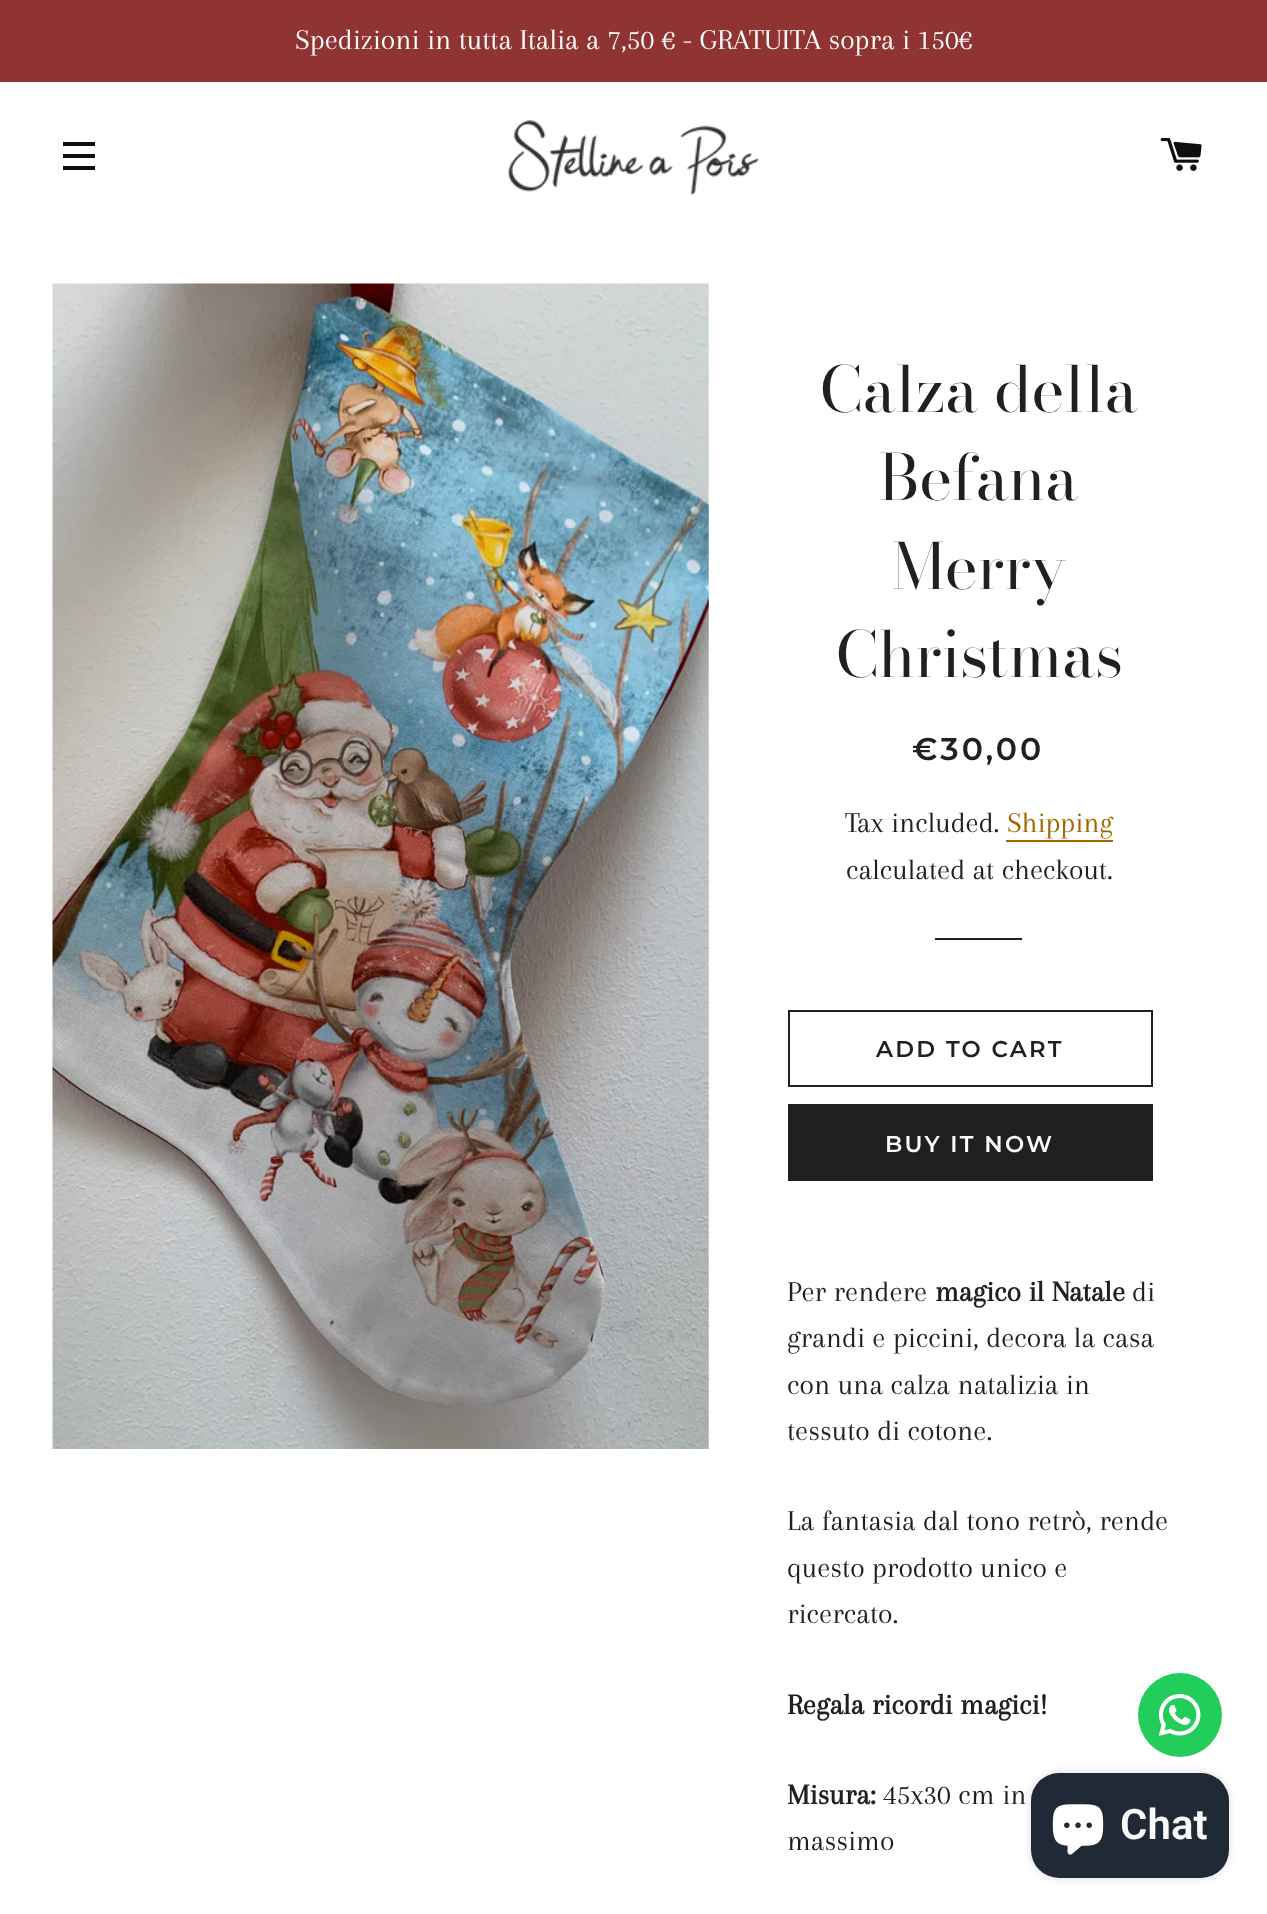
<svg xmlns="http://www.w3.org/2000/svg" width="1267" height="1914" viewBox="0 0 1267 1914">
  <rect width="100%" height="100%" fill="rgb(255,255,255)"/>
  <rect x="0" y="0" width="1267" height="82" fill="rgb(143,51,51)"/>
  <text x="295" y="49" font-family="Arapey" font-size="29.75" fill="rgb(250,250,250)">Spedizioni in tutta Italia a 7,50 € - GRATUITA sopra i 150€</text>
  <rect x="63" y="142" width="32" height="4" fill="rgb(16,15,15)"/>
  <rect x="63" y="154" width="32" height="4" fill="rgb(16,15,15)"/>
  <rect x="63" y="166" width="32" height="4" fill="rgb(16,15,15)"/>
  <image x="508" y="120" width="251" height="75" href="pic1.png"/>
  <image x="1160" y="138" width="42" height="33" href="pic2.png"/>
  <image x="52" y="283" width="657" height="1166" href="pic3.png"/>
  <g font-family="Bodoni Moda" font-size="63" fill="rgb(31,32,33)">
    <text x="820" y="412">Calza della</text>
    <text x="879" y="500">Befana</text>
    <text x="892" y="589">Merry</text>
    <text x="836" y="677">Christmas</text>
  </g>
  <text x="912" y="760" font-family="Montserrat" font-size="31.5" font-weight="600" letter-spacing="3" fill="rgb(31,32,33)">€30,00</text>
  <text x="845" y="832" font-family="Arapey" font-size="29.75" fill="rgb(31,32,33)">Tax included.</text>
  <text x="1007" y="832" font-family="Arapey" font-size="29.75" fill="rgb(165,102,0)">Shipping</text>
  <rect x="1006" y="840" width="107" height="2" fill="rgb(165,102,0)"/>
  <text x="846" y="879" font-family="Arapey" font-size="29.75" fill="rgb(31,32,33)">calculated at checkout.</text>
  <rect x="935" y="938" width="87" height="2" fill="rgb(31,32,33)"/>
  <rect x="789" y="1011" width="363" height="75" fill="none" stroke="rgb(31,32,33)" stroke-width="2"/>
  <text x="876" y="1057" font-family="Montserrat" font-size="22.75" font-weight="600" letter-spacing="2.25" fill="rgb(31,32,33)">ADD TO CART</text>
  <rect x="788" y="1104" width="365" height="77" fill="rgb(31,32,33)"/>
  <text x="885" y="1152" font-family="Montserrat" font-size="22.75" font-weight="600" letter-spacing="2.25" fill="rgb(250,250,250)">BUY IT NOW</text>
  <text x="787" y="1301" font-family="Arapey" font-size="29.75" fill="rgb(31,32,33)">Per rendere</text>
  <text x="935" y="1301" font-family="Arapey" font-size="29.75" font-weight="bold" fill="rgb(31,32,33)">magico il Natale</text>
  <g font-family="Arapey" font-size="29.75" fill="rgb(31,32,33)">
    <text x="1132" y="1301">di</text>
    <text>
      <tspan x="787" y="1347">grandi e piccini, decora la casa</tspan>
      <tspan x="787" y="1394">con una calza natalizia in</tspan>
      <tspan x="787" y="1440">tessuto di cotone.</tspan>
    </text>
    <text>
      <tspan x="787" y="1530">La fantasia dal tono retrò, rende</tspan>
      <tspan x="787" y="1577">questo prodotto unico e</tspan>
      <tspan x="787" y="1623">ricercato.</tspan>
    </text>
  </g>
  <g font-family="Arapey" font-size="29.75" font-weight="bold" fill="rgb(31,32,33)">
    <text x="787" y="1714">Regala ricordi magici!</text>
    <text x="787" y="1804">Misura:</text>
  </g>
  <g font-family="Arapey" font-size="29.75" fill="rgb(31,32,33)">
    <text x="883" y="1804">45x30 cm in</text>
    <text x="787" y="1850">massimo</text>
  </g>
  <circle cx="1180" cy="1715" r="42" fill="rgb(34,205,91)"/>
  <image x="1159" y="1694" width="42" height="42" href="pic4.png"/>
  <rect x="1031" y="1773" width="198" height="105" rx="28" fill="rgba(0,0,0,0.15)" filter="blur(4.5px)"/>
  <rect x="1031" y="1773" width="198" height="105" rx="28" fill="rgb(32,42,54)"/>
  <image x="1052" y="1804" width="52" height="51" href="pic5.png"/>
  <text x="1120" y="1839" font-family="Roboto" font-size="42" font-weight="600" fill="rgb(250,250,250)">Chat</text>
</svg>
